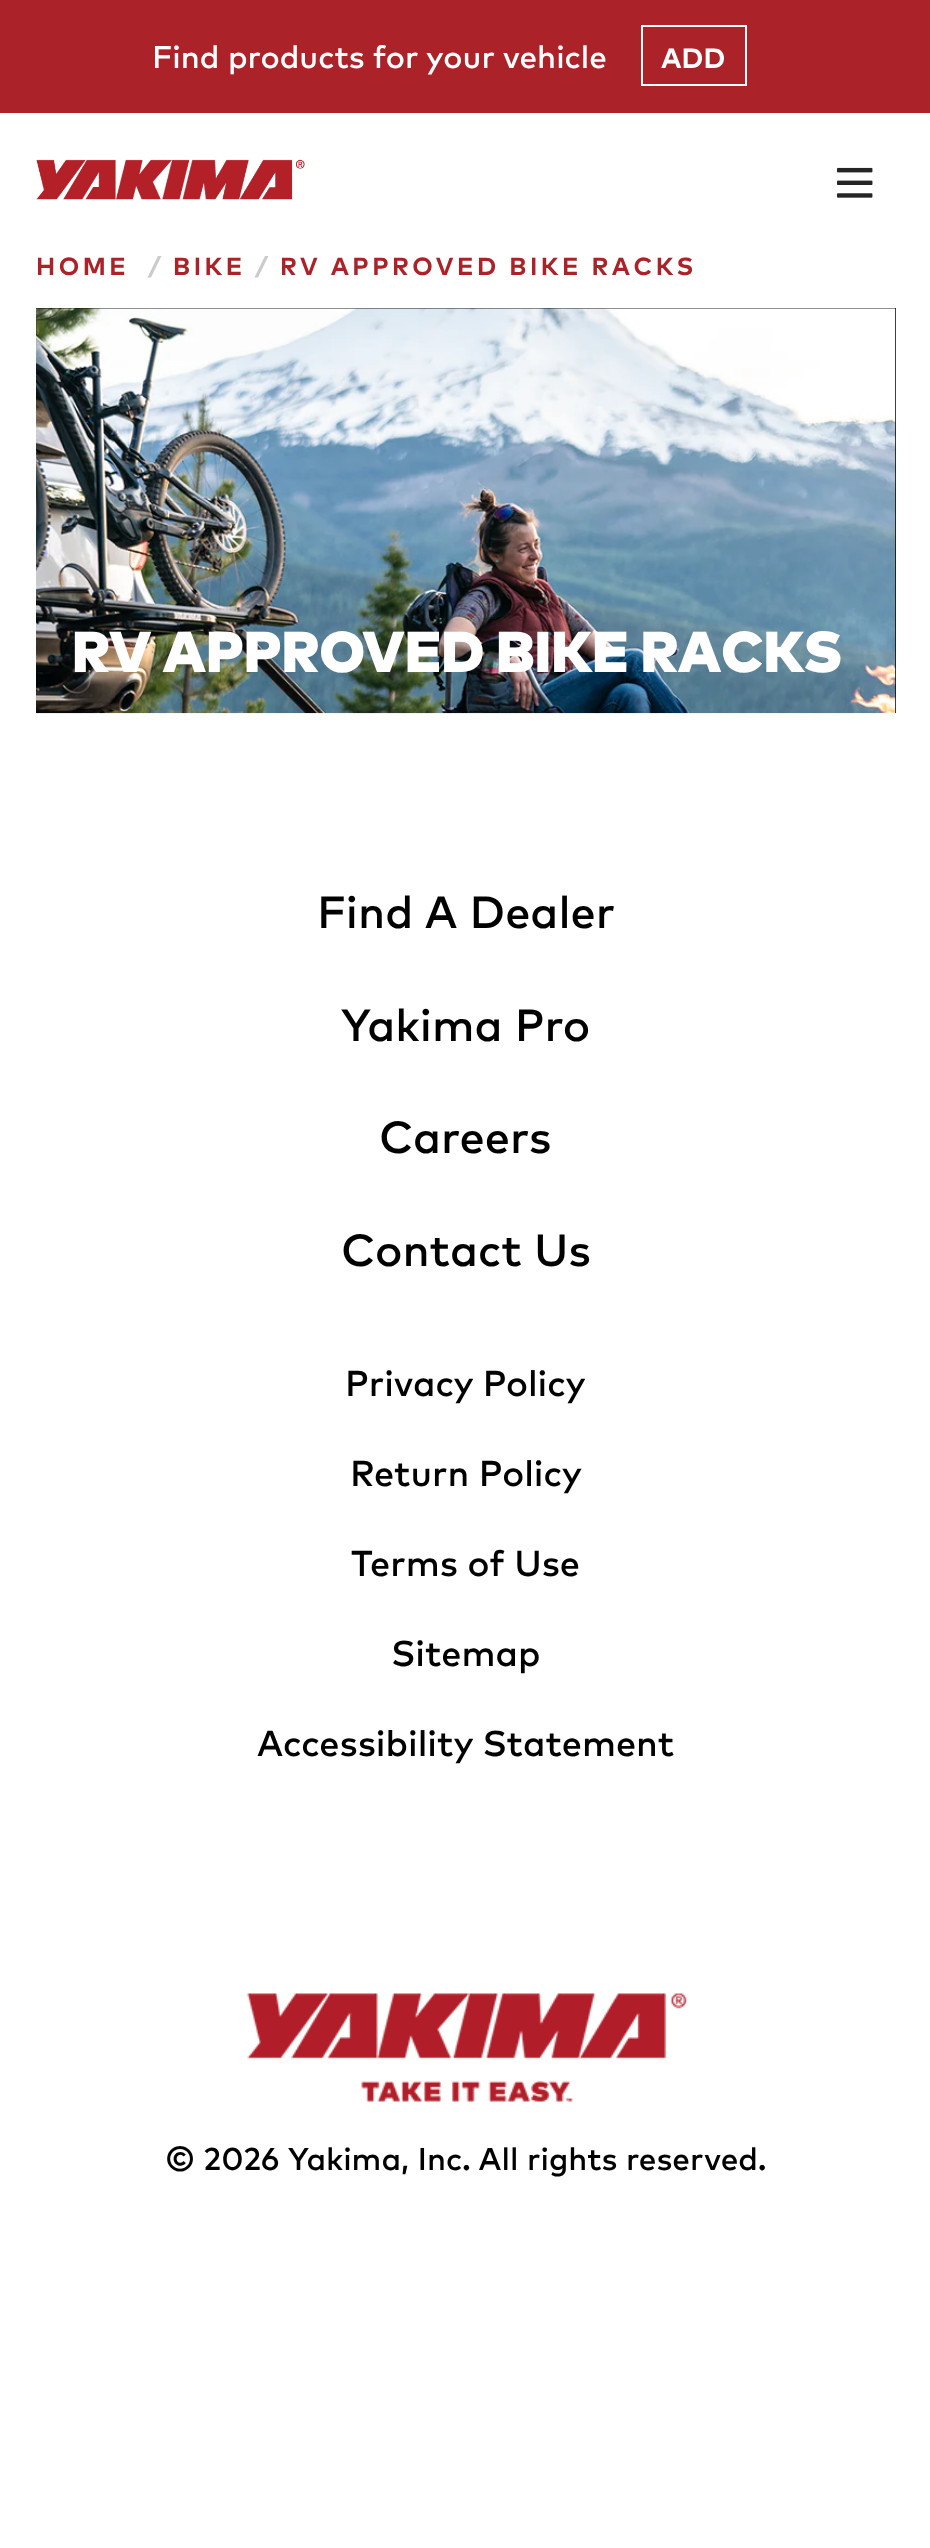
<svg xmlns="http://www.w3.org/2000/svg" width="930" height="2548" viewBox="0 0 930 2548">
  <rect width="100%" height="100%" fill="rgb(255,255,255)"/>
  <rect x="0" y="0" width="930" height="113" fill="rgb(171,35,40)"/>
  <text x="152" y="68" font-family="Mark" font-size="31.5" font-weight="500" fill="rgb(255,255,255)">Find products for your vehicle</text>
  <rect x="642" y="26" width="104" height="59" fill="none" stroke="rgb(255,255,255)" stroke-width="2"/>
  <text x="661" y="68" font-family="Mark" font-size="28" font-weight="bold" fill="rgb(255,255,255)">ADD</text>
  <image x="36" y="159" width="269" height="41" href="pic1.png"/>
  <image x="837" y="167" width="36" height="31" href="pic2.png"/>
  <text x="36" y="275" font-family="Mark" font-size="24.75" font-weight="bold" letter-spacing="3.5" fill="rgb(171,35,40)">HOME</text>
  <text x="148" y="275" font-family="Mark" font-size="24.75" font-weight="bold" letter-spacing="3.5" fill="rgb(201,203,205)">/</text>
  <text x="173" y="275" font-family="Mark" font-size="24.75" font-weight="bold" letter-spacing="3.5" fill="rgb(171,35,40)">BIKE</text>
  <text x="255" y="275" font-family="Mark" font-size="24.75" font-weight="bold" letter-spacing="3.5" fill="rgb(201,203,205)">/</text>
  <text x="280" y="275" font-family="Mark" font-size="24.75" font-weight="bold" letter-spacing="3.5" fill="rgb(171,35,40)">RV APPROVED BIKE RACKS</text>
  <rect x="36" y="308" width="860" height="405" fill="rgb(0,0,0)"/>
  <image x="36" y="308" width="860" height="406" href="pic3.png"/>
  <text x="72" y="672" font-family="Mark" font-size="57.4" font-weight="900" fill="rgb(255,255,255)">RV APPROVED BIKE RACKS</text>
  <g font-family="Mark" font-size="45" font-weight="500" fill="rgb(0,0,0)">
    <text x="317" y="928">Find A Dealer</text>
    <text x="341" y="1041">Yakima Pro</text>
    <text x="379" y="1153">Careers</text>
    <text x="341" y="1266">Contact Us</text>
  </g>
  <g font-family="Mark" font-size="36" font-weight="500" fill="rgb(0,0,0)">
    <text x="345" y="1396">Privacy Policy</text>
    <text x="350" y="1486">Return Policy</text>
    <text x="351" y="1576">Terms of Use</text>
    <text x="391" y="1666">Sitemap</text>
    <text x="257" y="1756">Accessibility Statement</text>
  </g>
  <image x="247" y="1993" width="440" height="109" href="pic4.png"/>
  <g font-family="Mark" font-size="31.5" font-weight="500" fill="rgb(0,0,0)">
    <text x="165" y="2170">© 2026</text>
    <text x="288" y="2170">Yakima, Inc. All rights reserved.</text>
  </g>
</svg>
